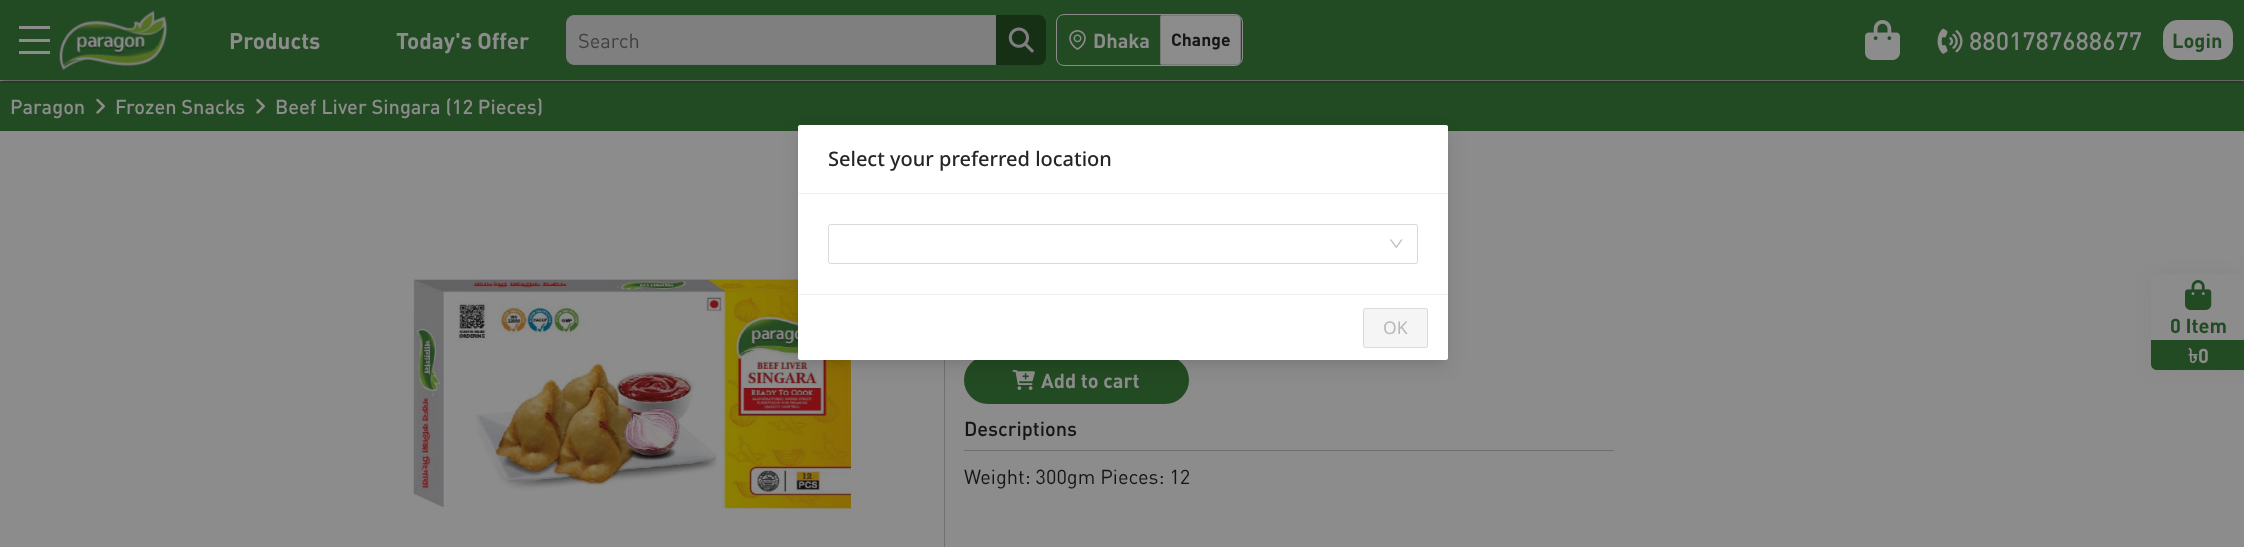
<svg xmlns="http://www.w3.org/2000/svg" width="2244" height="547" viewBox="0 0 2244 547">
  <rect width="100%" height="100%" fill="rgb(140,140,140)"/>
  <rect x="0" y="81" width="2244" height="50" fill="rgb(35,75,35)"/>
  <rect x="1" y="1" width="2243" height="78" fill="rgb(0,0,0)" filter="blur(2.5px)"/>
  <rect x="0" y="0" width="2244" height="80" fill="rgb(35,75,35)"/>
  <rect x="19" y="26" width="31" height="3" fill="rgb(140,140,140)"/>
  <rect x="19" y="39" width="31" height="3" fill="rgb(140,140,140)"/>
  <rect x="19" y="51" width="31" height="3" fill="rgb(140,140,140)"/>
  <image x="59" y="10" width="109" height="61" href="pic1.png"/>
  <g font-family="DIN" font-size="22.5" font-weight="bold" fill="rgb(140,140,140)">
    <text x="229" y="49">Products</text>
    <text x="396" y="49">Today's Offer</text>
  </g>
  <path d="M574 15.5H995.5V64.5H574C570 64.5 566.5 61 566.5 57V23C566.5 19 570 15.5 574 15.5Z" fill="rgb(127,127,127)" stroke="rgb(122,124,127)"/>
  <text x="578" y="48" font-family="DIN" font-size="20" fill="rgb(64,64,64)">Search</text>
  <path d="M996 15H1038C1042.5 15 1046 18.5 1046 23V57C1046 61.5 1042.5 65 1038 65H996Z" fill="rgb(21,48,21)"/>
  <image x="1008" y="27" width="26" height="26" href="pic2.png"/>
  <rect x="1056.5" y="14.5" width="186" height="51" rx="7.5" fill="none" stroke="rgb(140,140,140)"/>
  <image x="1069" y="30" width="17" height="20" href="pic3.png"/>
  <text x="1093" y="48" font-family="DIN" font-size="20" font-weight="bold" fill="rgb(140,140,140)">Dhaka</text>
  <path d="M1162.5 15H1235C1238.5 15 1241 17.5 1241 21V59C1241 62.5 1238.5 65 1235 65H1162.5C1161 65 1160 64 1160 62.5V17.5C1160 16 1161 15 1162.5 15Z" fill="rgb(140,140,140)"/>
  <path d="M1162 15C1161 15 1160 16 1160 18V62C1160 64 1161 65 1162 65H1235C1236 65 1237 65 1238 64H1162C1162 64 1161 63 1161 62V18C1161 17 1162 16 1162 16H1238L1235 15ZM1241 21L1240 18V62C1241 61 1241 60 1241 59Z" fill="rgb(119,119,119)" fill-rule="evenodd"/>
  <text x="1171" y="46" font-family="DIN" font-size="17.5" font-weight="bold" fill="rgb(21,21,21)">Change</text>
  <image x="1865" y="20" width="35" height="40" href="pic4.png"/>
  <image x="1937" y="28" width="26" height="26" href="pic5.png"/>
  <text x="1969" y="50" font-family="DIN" font-size="25" font-weight="500" fill="rgb(140,140,140)">8801787688677</text>
  <rect x="2163" y="20" width="70" height="40" rx="15" fill="rgb(140,140,140)"/>
  <text x="2172" y="48" font-family="DIN" font-size="20" font-weight="bold" fill="rgb(35,75,35)">Login</text>
  <text x="10" y="114" font-family="DIN" font-size="20" font-weight="500" fill="rgb(140,140,140)">Paragon</text>
  <image x="96" y="98" width="9" height="16" href="pic6.png"/>
  <text x="115" y="114" font-family="DIN" font-size="20" font-weight="500" fill="rgb(140,140,140)">Frozen Snacks</text>
  <image x="256" y="98" width="9" height="16" href="pic6.png"/>
  <text x="275" y="114" font-family="DIN" font-size="20" font-weight="500" fill="rgb(140,140,140)">Beef Liver Singara (12 Pieces)</text>
  <rect x="944" y="360" width="1" height="187" fill="rgb(112,112,112)"/>
  <image x="413" y="279" width="438" height="230" href="pic7.png"/>
  <rect x="964" y="356" width="225" height="48" rx="24" fill="rgb(35,75,35)"/>
  <image x="1012" y="370" width="23" height="20" href="pic8.png"/>
  <text x="1041" y="388" font-family="DIN" font-size="20" font-weight="bold" fill="rgb(140,140,140)">Add to cart</text>
  <text x="964" y="436" font-family="DIN" font-size="20" font-weight="500" fill="rgb(21,21,21)">Descriptions</text>
  <rect x="964" y="450" width="650" height="1" fill="rgb(110,111,111)"/>
  <text x="964" y="484" font-family="DIN" font-size="20" fill="rgb(21,21,21)">Weight: 300gm Pieces: 12</text>
  <rect x="2155" y="278" width="86" height="88" rx="2.5" fill="rgb(127,127,127)" filter="blur(8px)"/>
  <path d="M2157 274H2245V340H2151V280C2151 276.5 2153.5 274 2157 274Z" fill="rgb(140,140,140)"/>
  <image x="2185" y="280" width="27" height="30" href="pic9.png"/>
  <text x="2170" y="333" font-family="DIN" font-size="20" font-weight="bold" fill="rgb(35,75,35)">0 Item</text>
  <path d="M2151 340H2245V370H2157C2153.5 370 2151 367.5 2151 364Z" fill="rgb(35,75,35)"/>
  <text x="2188" y="363" font-family="Lohit Bengali" font-size="20" font-weight="bold" fill="rgb(140,140,140)">৳</text>
  <text x="2198" y="363" font-family="DIN" font-size="20" font-weight="bold" fill="rgb(140,140,140)">0</text>
  <rect x="798" y="133" width="650" height="235" rx="2.5" fill="rgba(0,0,0,0.08)" filter="blur(10px)"/>
  <rect x="803" y="134" width="640" height="225" fill="rgba(0,0,0,0.12)" filter="blur(4px)"/>
  <rect x="798" y="125" width="650" height="235" rx="2.5" fill="rgb(255,255,255)"/>
  <path d="M800.5 125H1445.5C1447 125 1448 126 1448 127.5V194H798V127.5C798 126 799 125 800.5 125Z" fill="rgb(255,255,255)"/>
  <rect x="798" y="193" width="650" height="1" fill="rgb(240,240,240)"/>
  <text x="828" y="166" font-family="Noto Sans" font-size="20" font-weight="500" fill="rgb(38,38,38)">Select your preferred location</text>
  <rect x="828.5" y="224.5" width="589" height="39" rx="2" fill="none" stroke="rgb(217,217,217)"/>
  <image x="1390" y="239" width="13" height="9" href="pic10.png"/>
  <rect x="798" y="294" width="650" height="1" fill="rgb(240,240,240)"/>
  <rect x="1363.5" y="308.5" width="64" height="39" rx="2" fill="rgb(245,245,245)" stroke="rgb(217,217,217)"/>
  <text x="1383" y="334" font-family="Noto Sans" font-size="17.5" fill="rgb(184,184,184)">OK</text>
</svg>
